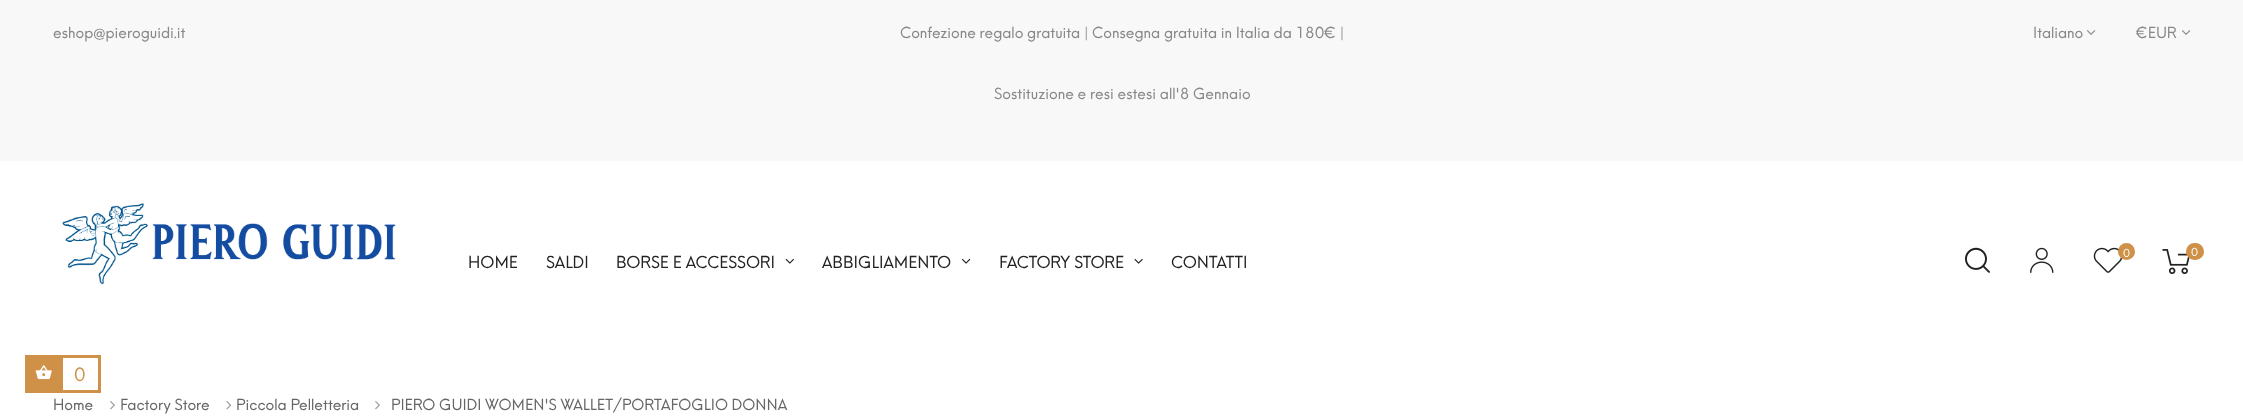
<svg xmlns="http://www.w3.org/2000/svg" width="2243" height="417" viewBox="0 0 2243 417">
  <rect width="100%" height="100%" fill="rgb(255,255,255)"/>
  <rect x="0" y="0" width="2243" height="161" fill="rgb(248,248,248)"/>
  <g font-family="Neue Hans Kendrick" font-size="15" fill="rgb(136,136,136)">
    <text x="53" y="38">eshop@pieroguidi.it</text>
    <text x="900" y="38">Confezione regalo gratuita | Consegna gratuita in Italia da 180€ |</text>
    <text x="994" y="99">Sostituzione e resi estesi all'8 Gennaio</text>
    <text x="2033" y="38">Italiano</text>
  </g>
  <image x="2087" y="30" width="9" height="5" href="pic1.png"/>
  <text x="2136" y="38" font-family="Neue Hans Kendrick" font-size="15" fill="rgb(136,136,136)">€EUR</text>
  <image x="2182" y="30" width="9" height="5" href="pic1.png"/>
  <image x="62" y="203" width="334" height="82" href="pic2.png"/>
  <image x="1965" y="247" width="25" height="26" href="pic3.png"/>
  <image x="2030" y="247" width="24" height="26" href="pic4.png"/>
  <image x="2093" y="247" width="30" height="26" href="pic5.png"/>
  <circle cx="2126.5" cy="251.5" r="8.5" fill="rgb(207,145,71)"/>
  <text x="2123" y="257" font-family="Neue Hans Kendrick" font-size="11" fill="rgb(255,255,255)">0</text>
  <image x="2162" y="249" width="28" height="25" href="pic6.png"/>
  <rect x="2186" y="243" width="18" height="17" rx="8.5" fill="rgb(207,145,71)"/>
  <text x="2191" y="256" font-family="Neue Hans Kendrick" font-size="11" fill="rgb(255,255,255)">0</text>
  <g font-family="Neue Hans Kendrick" font-size="16.25" fill="rgb(34,34,34)">
    <text x="468" y="268">HOME</text>
    <text x="546" y="268">SALDI</text>
    <text x="616" y="268">BORSE E ACCESSORI</text>
  </g>
  <image x="785" y="258" width="9" height="6" href="pic7.png"/>
  <text x="822" y="268" font-family="Neue Hans Kendrick" font-size="16.25" fill="rgb(34,34,34)">ABBIGLIAMENTO</text>
  <image x="961" y="258" width="10" height="6" href="pic8.png"/>
  <text x="999" y="268" font-family="Neue Hans Kendrick" font-size="16.25" fill="rgb(34,34,34)">FACTORY STORE</text>
  <image x="1134" y="258" width="9" height="6" href="pic9.png"/>
  <text x="1171" y="268" font-family="Neue Hans Kendrick" font-size="16.25" fill="rgb(34,34,34)">CONTATTI</text>
  <text x="53" y="410" font-family="Neue Hans Kendrick" font-size="15" fill="rgb(102,102,102)">Home</text>
  <image x="110" y="401" width="5" height="9" href="pic10.png"/>
  <text x="120" y="410" font-family="Neue Hans Kendrick" font-size="15" fill="rgb(102,102,102)">Factory Store</text>
  <image x="226" y="401" width="6" height="9" href="pic11.png"/>
  <text x="236" y="410" font-family="Neue Hans Kendrick" font-size="15" fill="rgb(102,102,102)">Piccola Pelletteria</text>
  <image x="375" y="401" width="5" height="9" href="pic10.png"/>
  <text x="391" y="410" font-family="Neue Hans Kendrick" font-size="15" fill="rgb(102,102,102)">PIERO GUIDI WOMEN'S WALLET/PORTAFOGLIO DONNA</text>
  <rect x="25" y="355" width="76" height="38" fill="rgb(207,145,71)"/>
  <image x="35" y="365" width="17" height="15" href="pic12.png"/>
  <rect x="63" y="358" width="35" height="32" fill="rgb(255,255,255)"/>
  <text x="74" y="381" font-family="Neue Hans Kendrick" font-size="18" fill="rgb(207,145,71)">0</text>
</svg>
